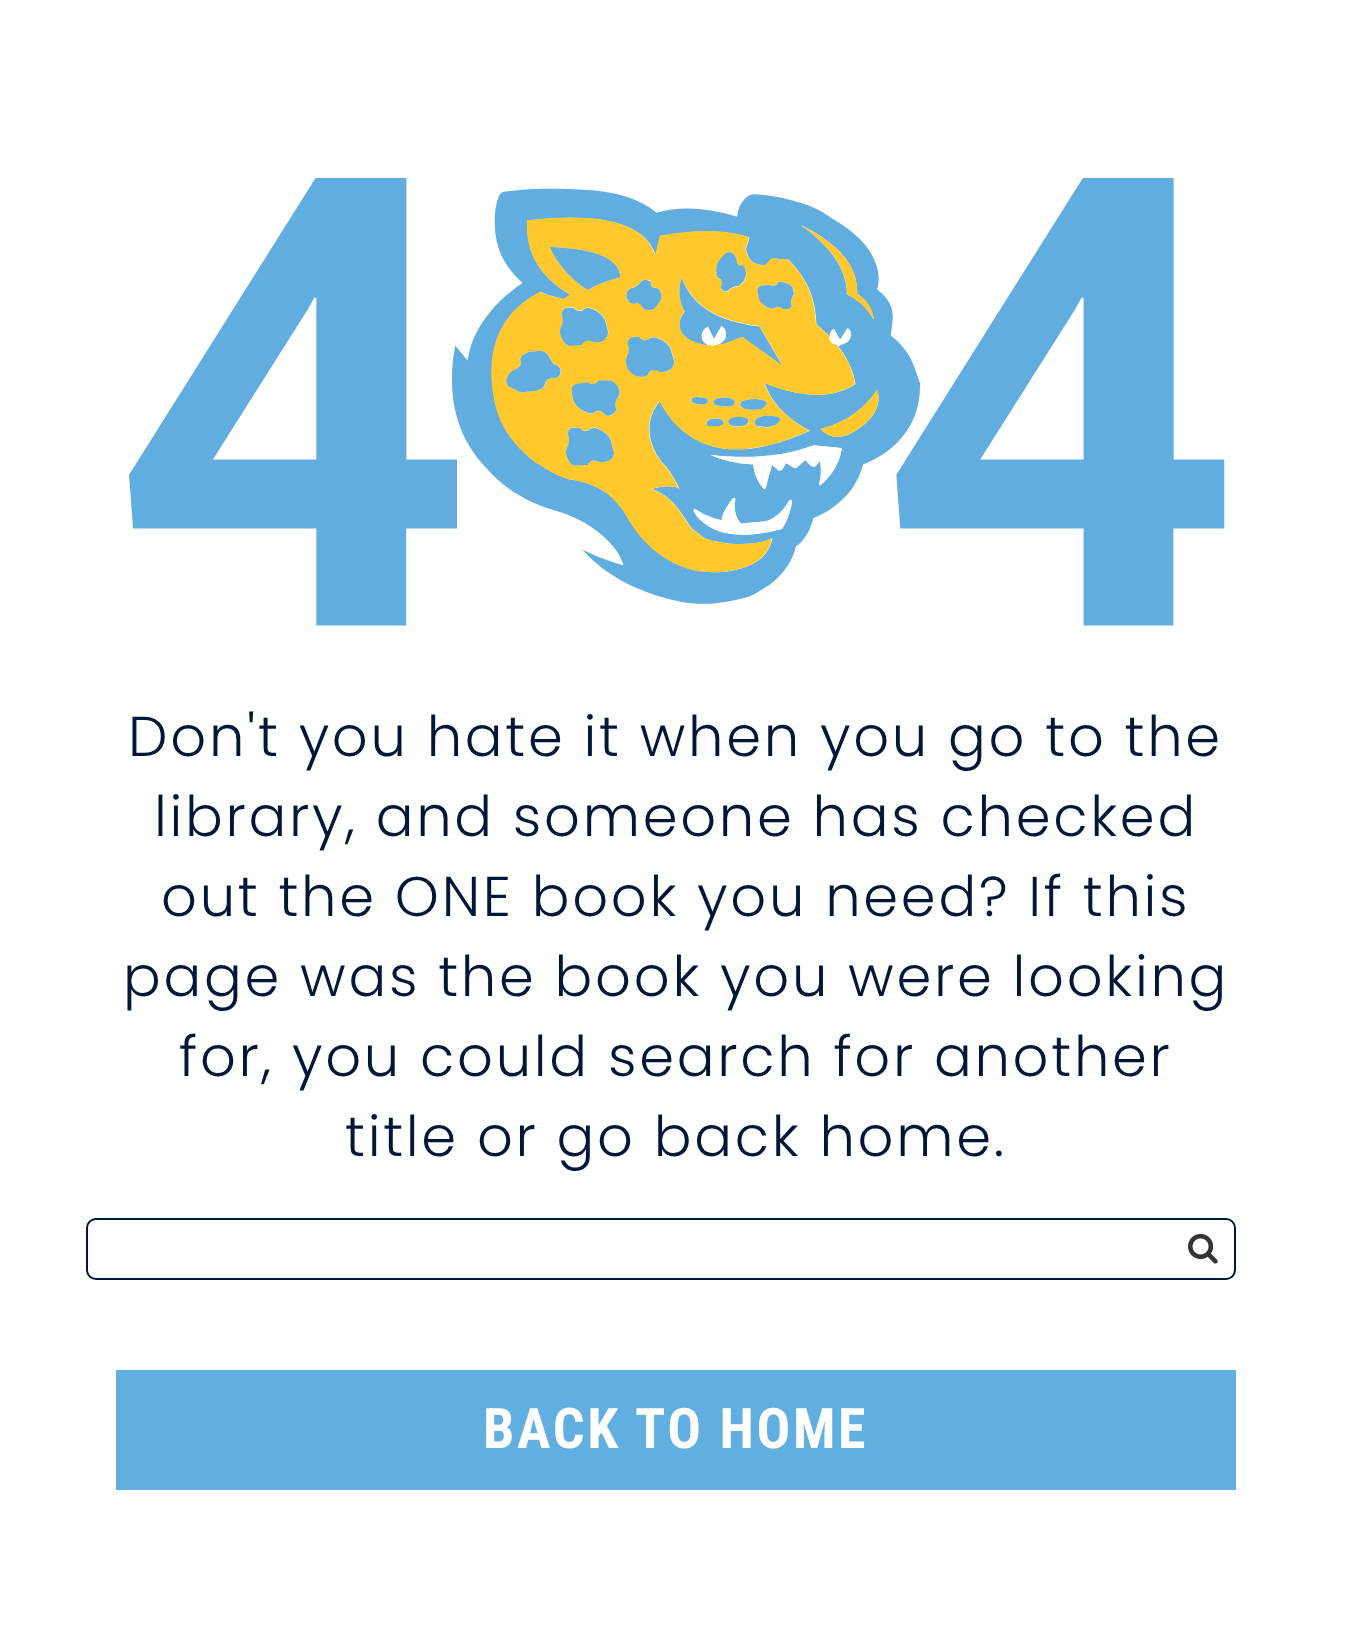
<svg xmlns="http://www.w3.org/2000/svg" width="1352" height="1645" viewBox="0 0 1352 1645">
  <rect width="100%" height="100%" fill="rgb(255,255,255)"/>
  <image x="129" y="178" width="1096" height="448" href="pic1.png"/>
  <g font-family="Poppins" font-size="56" font-weight="300" letter-spacing="2.7" fill="rgb(0,23,56)">
    <text x="128" y="756">Don't you hate it when you go to the</text>
    <text x="154" y="836">library, and someone has checked</text>
    <text x="161" y="916">out the ONE book you need? If this</text>
    <text x="123" y="996">page was the book you were looking</text>
    <text x="179" y="1076">for, you could search for another</text>
    <text x="345" y="1156">title or go back home.</text>
  </g>
  <rect x="87" y="1219" width="1148" height="60" rx="9" fill="none" stroke="rgb(0,23,56)" stroke-width="2"/>
  <image x="1188" y="1233" width="30" height="31" href="pic2.png"/>
  <rect x="116" y="1370" width="1120" height="120" fill="rgb(97,174,225)"/>
  <text x="483" y="1448" font-family="Roboto Condensed" font-size="56" font-weight="bold" letter-spacing="2.7" fill="rgb(255,255,255)">BACK TO HOME</text>
</svg>
